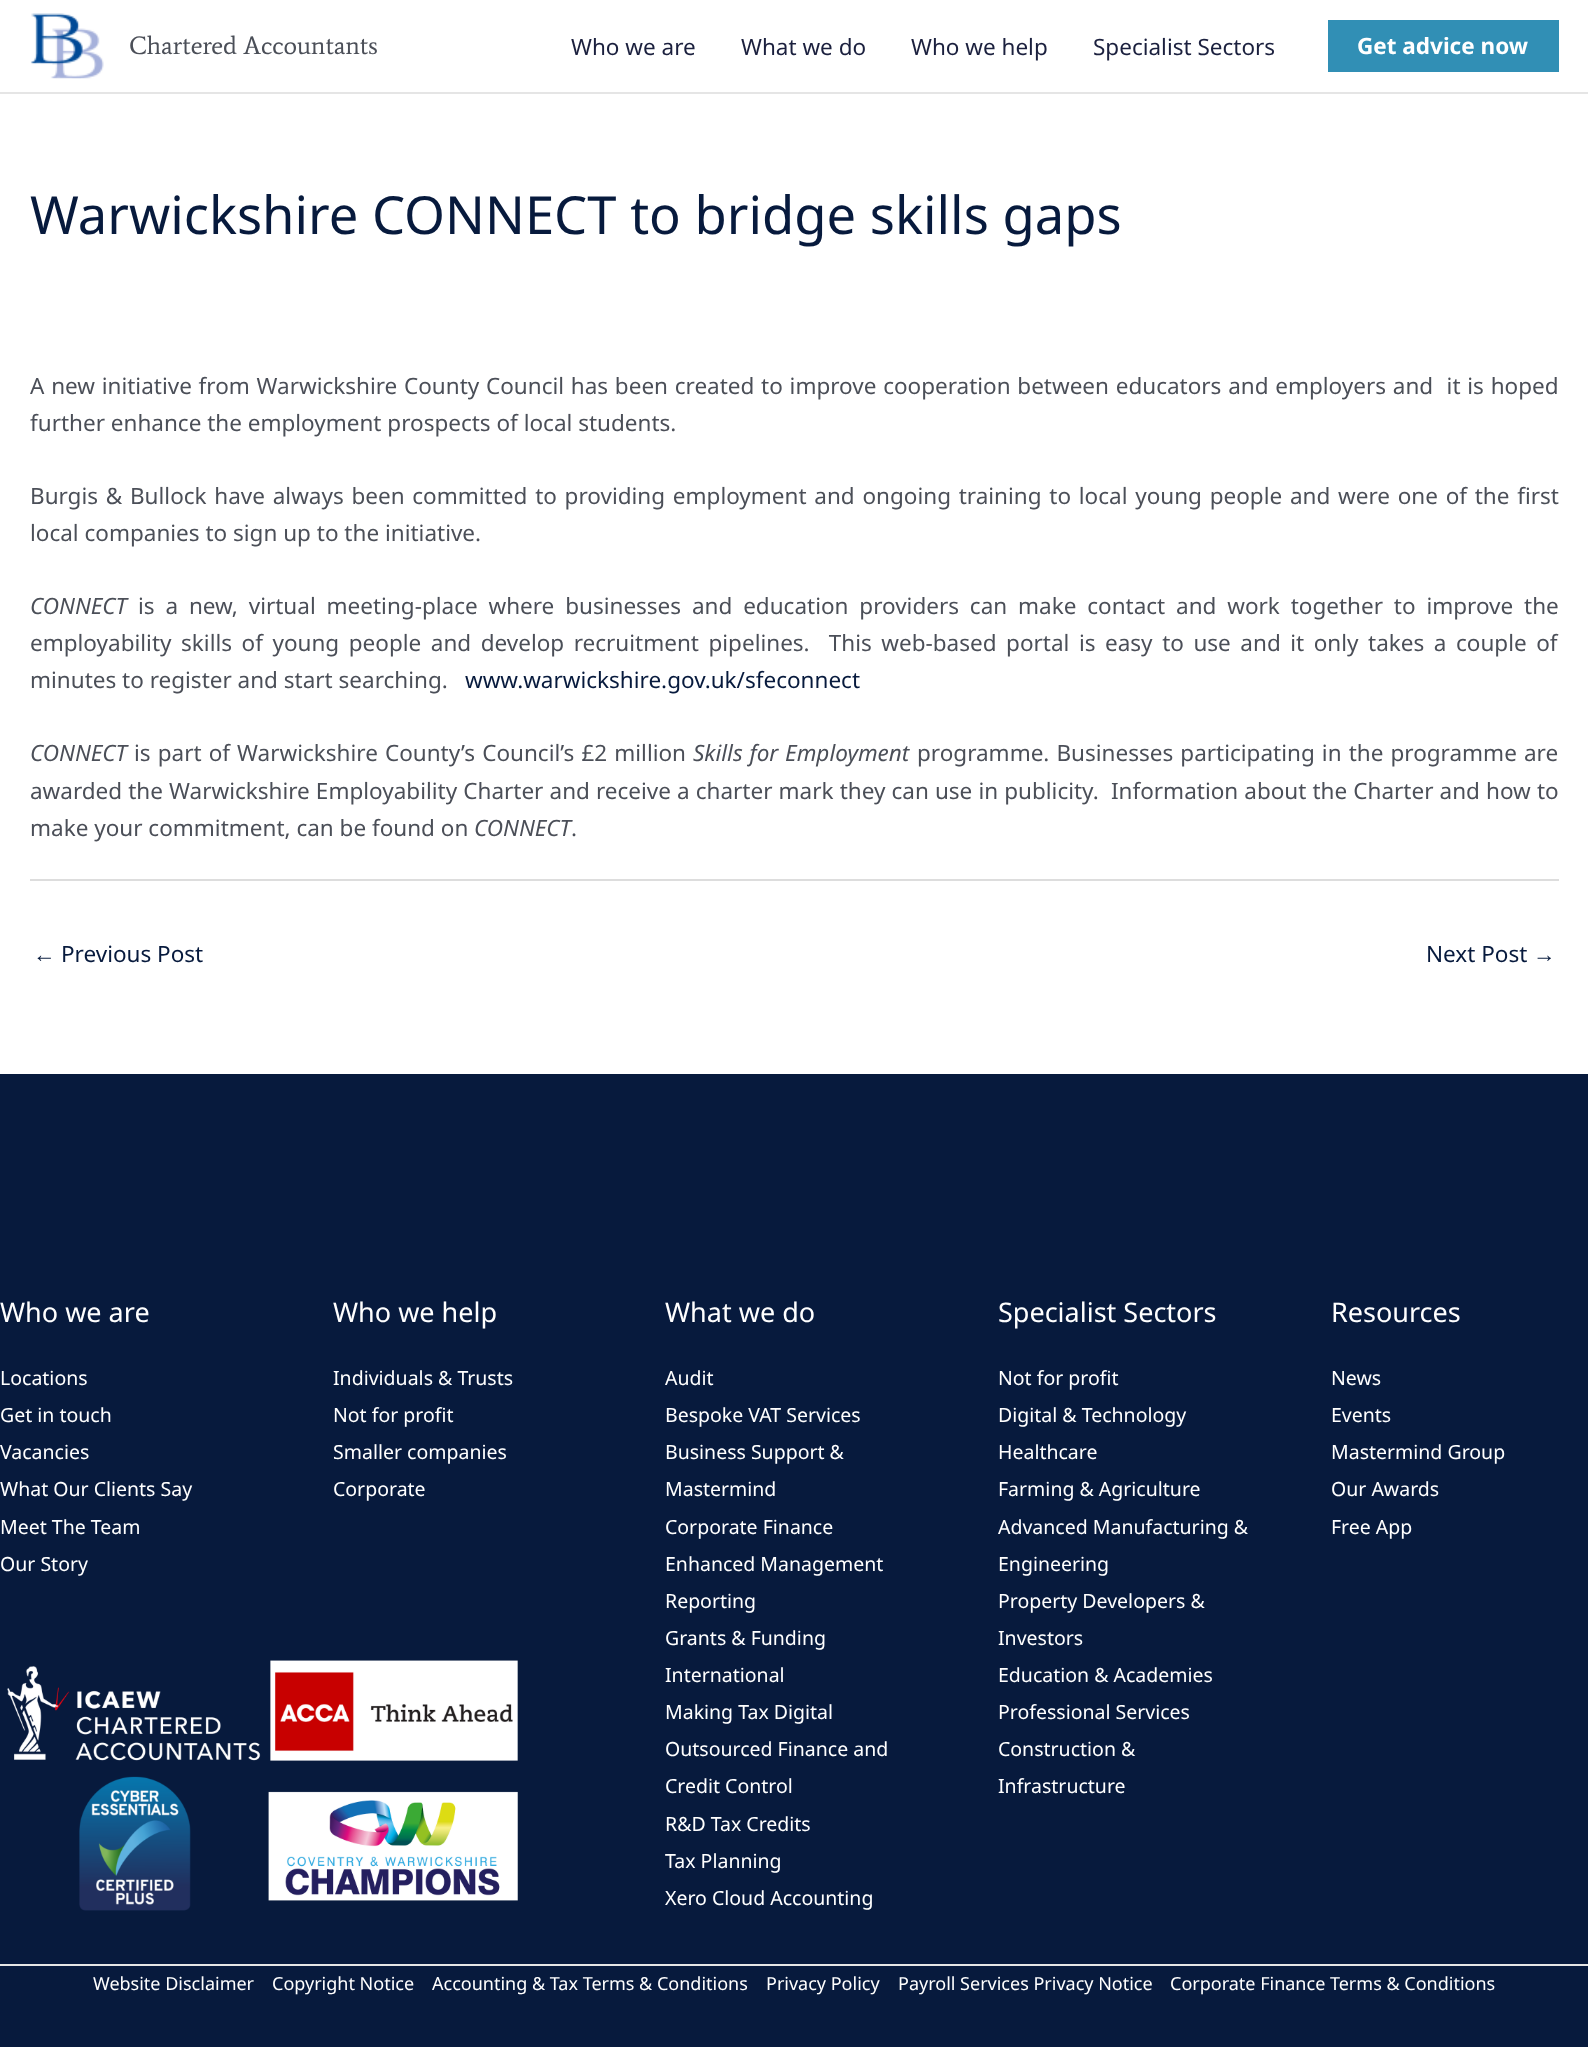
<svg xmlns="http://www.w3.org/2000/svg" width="1588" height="2047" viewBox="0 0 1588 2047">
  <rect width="100%" height="100%" fill="rgb(255,255,255)"/>
  <rect x="0" y="92" width="1588" height="2" fill="rgb(229,229,229)"/>
  <image x="30" y="13" width="74" height="66" href="pic1.png"/>
  <text x="129" y="54" font-family="Average" font-size="25.5" fill="rgb(75,79,88)">Chartered Accountants</text>
  <g font-family="Noto Sans" font-size="22.5" fill="rgb(27,32,62)">
    <text x="571" y="55">Who we are</text>
    <text x="741" y="55">What we do</text>
    <text x="911" y="55">Who we help</text>
    <text x="1093" y="55">Specialist Sectors</text>
  </g>
  <rect x="1328" y="20" width="231" height="52" fill="rgb(49,143,181)"/>
  <text x="1357" y="54" font-family="Noto Sans" font-size="22.5" font-weight="bold" fill="rgb(255,255,255)">Get advice now</text>
  <text x="30" y="234" font-family="Noto Sans" font-size="52.5" fill="rgb(7,26,61)">Warwickshire CONNECT to bridge skills gaps</text>
  <g font-family="Noto Sans" font-size="22.5" fill="rgb(75,79,88)">
    <text xml:space="preserve"><tspan x="30" y="394" word-spacing="0.9">A new initiative from Warwickshire County Council has been created to improve cooperation between educators and employers and  it is hoped</tspan><tspan x="30" y="431">further enhance the employment prospects of local students.</tspan></text>
    <text>
      <tspan x="30" y="504" word-spacing="1.9">Burgis &amp; Bullock have always been committed to providing employment and ongoing training to local young people and were one of the first</tspan>
      <tspan x="30" y="541">local companies to sign up to the initiative.</tspan>
    </text>
  </g>
  <text x="30" y="614" font-family="Noto Sans" font-size="22.5" font-style="italic" fill="rgb(75,79,88)">CONNECT</text>
  <g font-family="Noto Sans" font-size="22.5" fill="rgb(75,79,88)">
    <text x="138" y="614" word-spacing="5">is a new, virtual meeting-place where businesses and education providers can make contact and work together to improve the</text>
    <text xml:space="preserve"><tspan x="30" y="651" word-spacing="3.7">employability skills of young people and develop recruitment pipelines.  This web-based portal is easy to use and it only takes a couple of</tspan><tspan x="30" y="688">minutes to register and start searching.</tspan></text>
  </g>
  <text x="465" y="688" font-family="Noto Sans" font-size="22.5" fill="rgb(7,26,61)">www.warwickshire.gov.uk/sfeconnect</text>
  <text x="30" y="761" font-family="Noto Sans" font-size="22.5" font-style="italic" fill="rgb(75,79,88)">CONNECT</text>
  <text x="134" y="761" word-spacing="1.25" font-family="Noto Sans" font-size="22.5" fill="rgb(75,79,88)">is part of Warwickshire County’s Council’s £2 million</text>
  <text x="693" y="761" word-spacing="1" font-family="Noto Sans" font-size="22.5" font-style="italic" fill="rgb(75,79,88)">Skills for Employment</text>
  <g font-family="Noto Sans" font-size="22.5" fill="rgb(75,79,88)">
    <text x="917" y="761" word-spacing="1.25">programme. Businesses participating in the programme are</text>
    <text xml:space="preserve"><tspan x="30" y="799" word-spacing="0.25">awarded the Warwickshire Employability Charter and receive a charter mark they can use in publicity.  Information about the Charter and how to</tspan><tspan x="30" y="836">make your commitment, can be found on</tspan></text>
  </g>
  <text x="474" y="836" font-family="Noto Sans" font-size="22.5" font-style="italic" fill="rgb(75,79,88)">CONNECT</text>
  <text x="571" y="836" font-family="Noto Sans" font-size="22.5" fill="rgb(75,79,88)">.</text>
  <rect x="30" y="879" width="1529" height="2" fill="rgb(221,221,221)"/>
  <text x="33" y="962" font-family="Liberation Sans" font-size="22.5" fill="rgb(7,26,61)">←</text>
  <g font-family="Noto Sans" font-size="22.5" fill="rgb(7,26,61)">
    <text x="61" y="962">Previous Post</text>
    <text x="1426" y="962">Next Post</text>
  </g>
  <text x="1533" y="962" font-family="Liberation Sans" font-size="22.5" fill="rgb(7,26,61)">→</text>
  <rect x="0" y="1074" width="1588" height="890" fill="rgb(7,26,61)"/>
  <text x="0" y="1322" font-family="Noto Sans" font-size="27" fill="rgb(255,255,255)">Who we are</text>
  <g font-family="Noto Sans" font-size="19.5" fill="rgb(255,255,255)">
    <text>
      <tspan x="0" y="1385">Locations</tspan>
      <tspan x="0" y="1422">Get in touch</tspan>
      <tspan x="0" y="1459">Vacancies</tspan>
      <tspan x="0" y="1496">What Our Clients Say</tspan>
      <tspan x="0" y="1534">Meet The Team</tspan>
      <tspan x="0" y="1571">Our Story</tspan>
    </text>
  </g>
  <image x="7" y="1660" width="511" height="251" href="pic2.png"/>
  <text x="333" y="1322" font-family="Noto Sans" font-size="27" fill="rgb(255,255,255)">Who we help</text>
  <g font-family="Noto Sans" font-size="19.5" fill="rgb(255,255,255)">
    <text>
      <tspan x="333" y="1385">Individuals &amp; Trusts</tspan>
      <tspan x="333" y="1422">Not for profit</tspan>
      <tspan x="333" y="1459">Smaller companies</tspan>
      <tspan x="333" y="1496">Corporate</tspan>
    </text>
  </g>
  <text x="665" y="1322" font-family="Noto Sans" font-size="27" fill="rgb(255,255,255)">What we do</text>
  <g font-family="Noto Sans" font-size="19.5" fill="rgb(255,255,255)">
    <text>
      <tspan x="665" y="1385">Audit</tspan>
      <tspan x="665" y="1422">Bespoke VAT Services</tspan>
      <tspan x="665" y="1459">Business Support &amp;</tspan>
      <tspan x="665" y="1496">Mastermind</tspan>
      <tspan x="665" y="1534">Corporate Finance</tspan>
      <tspan x="665" y="1571">Enhanced Management</tspan>
      <tspan x="665" y="1608">Reporting</tspan>
      <tspan x="665" y="1645">Grants &amp; Funding</tspan>
      <tspan x="665" y="1682">International</tspan>
      <tspan x="665" y="1719">Making Tax Digital</tspan>
      <tspan x="665" y="1756">Outsourced Finance and</tspan>
      <tspan x="665" y="1793">Credit Control</tspan>
      <tspan x="665" y="1831">R&amp;D Tax Credits</tspan>
      <tspan x="665" y="1868">Tax Planning</tspan>
      <tspan x="665" y="1905">Xero Cloud Accounting</tspan>
    </text>
  </g>
  <text x="998" y="1322" font-family="Noto Sans" font-size="27" fill="rgb(255,255,255)">Specialist Sectors</text>
  <g font-family="Noto Sans" font-size="19.5" fill="rgb(255,255,255)">
    <text>
      <tspan x="998" y="1385">Not for profit</tspan>
      <tspan x="998" y="1422">Digital &amp; Technology</tspan>
      <tspan x="998" y="1459">Healthcare</tspan>
      <tspan x="998" y="1496">Farming &amp; Agriculture</tspan>
      <tspan x="998" y="1534">Advanced Manufacturing &amp;</tspan>
      <tspan x="998" y="1571">Engineering</tspan>
      <tspan x="998" y="1608">Property Developers &amp;</tspan>
      <tspan x="998" y="1645">Investors</tspan>
      <tspan x="998" y="1682">Education &amp; Academies</tspan>
      <tspan x="998" y="1719">Professional Services</tspan>
      <tspan x="998" y="1756">Construction &amp;</tspan>
      <tspan x="998" y="1793">Infrastructure</tspan>
    </text>
  </g>
  <text x="1331" y="1322" font-family="Noto Sans" font-size="27" fill="rgb(255,255,255)">Resources</text>
  <g font-family="Noto Sans" font-size="19.5" fill="rgb(255,255,255)">
    <text>
      <tspan x="1331" y="1385">News</tspan>
      <tspan x="1331" y="1422">Events</tspan>
      <tspan x="1331" y="1459">Mastermind Group</tspan>
      <tspan x="1331" y="1496">Our Awards</tspan>
      <tspan x="1331" y="1534">Free App</tspan>
    </text>
  </g>
  <rect x="0" y="1966" width="1588" height="81" fill="rgb(7,26,61)"/>
  <rect x="0" y="1964" width="1588" height="2" fill="rgb(229,229,229)"/>
  <g font-family="Noto Sans" font-size="18" fill="rgb(255,255,255)">
    <text x="93" y="1990">Website Disclaimer</text>
    <text x="272" y="1990">Copyright Notice</text>
    <text x="432" y="1990">Accounting &amp; Tax Terms &amp; Conditions</text>
    <text x="766" y="1990">Privacy Policy</text>
    <text x="898" y="1990">Payroll Services Privacy Notice</text>
    <text x="1170" y="1990">Corporate Finance Terms &amp; Conditions</text>
  </g>
</svg>
